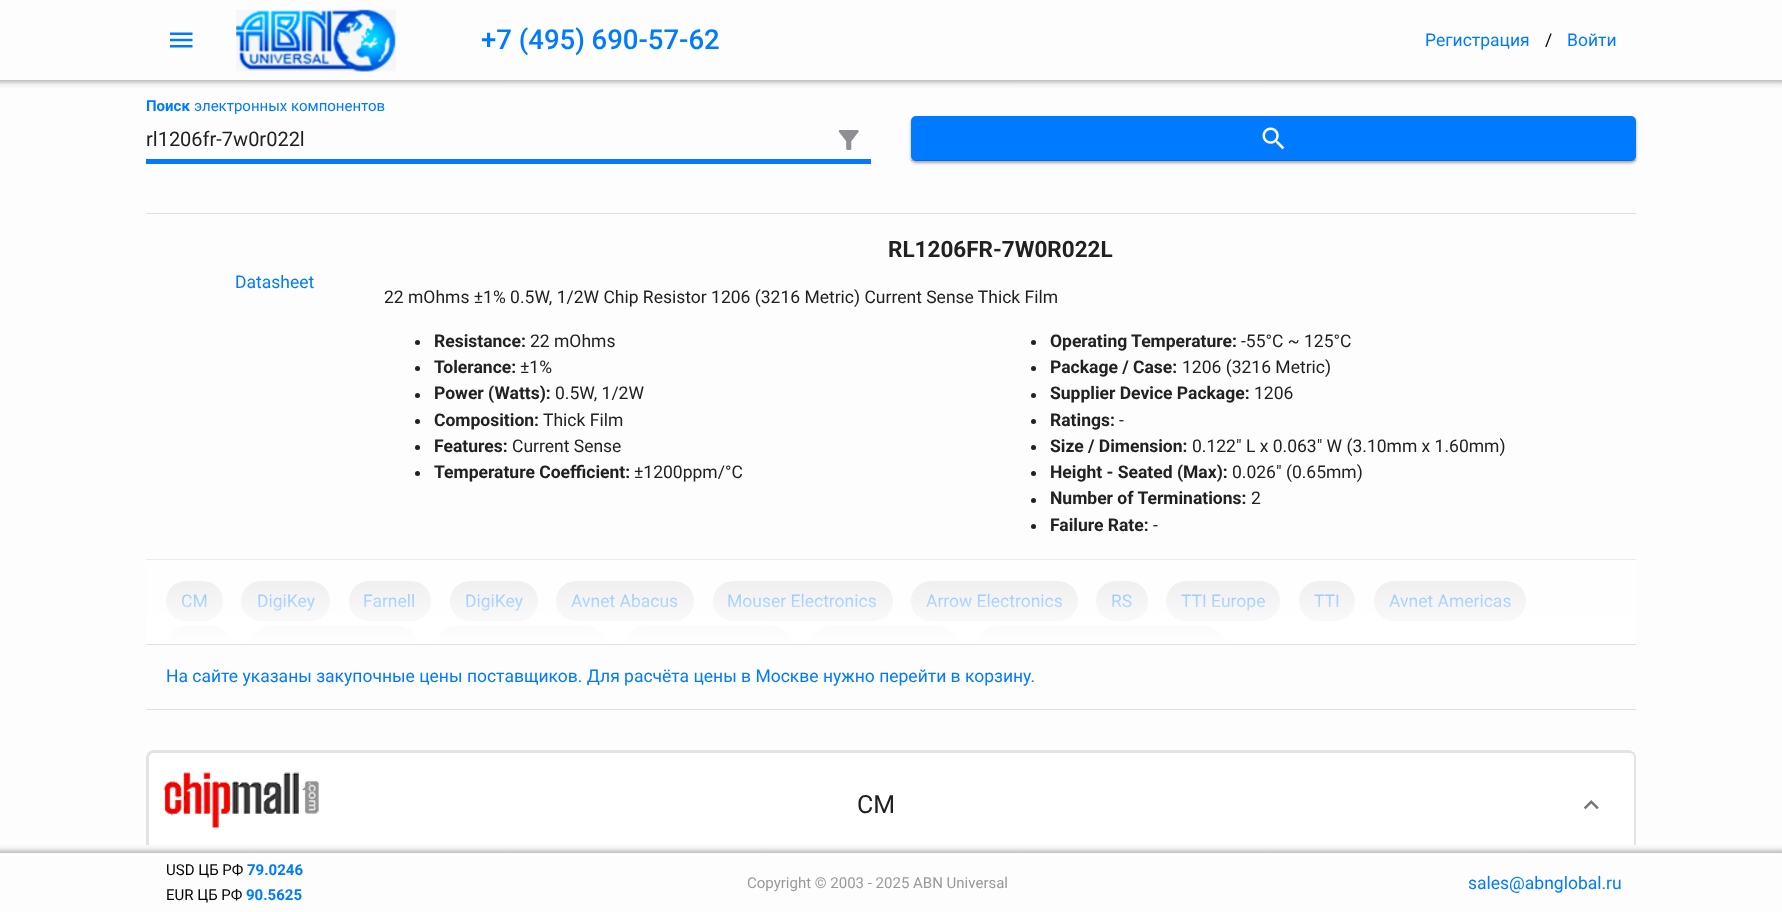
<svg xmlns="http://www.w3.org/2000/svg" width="1782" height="912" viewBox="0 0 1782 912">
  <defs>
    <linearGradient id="g1" gradientUnits="userSpaceOnUse" x1="891" y1="80" x2="891" y2="90"><stop offset="0" stop-color="rgb(190,190,191)"/><stop offset="0.4" stop-color="rgb(233,233,234)"/><stop offset="0.5" stop-color="rgb(243,243,244)"/><stop offset="0.9" stop-color="rgb(253,253,254)"/><stop offset="1" stop-color="rgb(253,253,254)"/></linearGradient>
    <linearGradient id="g2" gradientUnits="userSpaceOnUse" x1="891" y1="516" x2="891" y2="644"><stop offset="0" stop-color="rgb(255,255,255)" stop-opacity="0"/><stop offset="1" stop-color="rgb(255,255,255)"/></linearGradient>
    <linearGradient id="g3" gradientUnits="userSpaceOnUse" x1="891" y1="853" x2="891" y2="843"><stop offset="0" stop-color="rgb(190,190,191)"/><stop offset="0.4" stop-color="rgb(233,233,234)"/><stop offset="0.5" stop-color="rgb(243,243,244)"/><stop offset="0.9" stop-color="rgb(253,253,254)"/><stop offset="1" stop-color="rgb(253,253,254)"/></linearGradient>
    <clipPath id="clip1"><rect x="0" y="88" width="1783" height="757"/></clipPath>
  </defs>
  <rect width="100%" height="100%" fill="rgb(253,253,254)"/>
  <image x="170" y="32" width="23" height="16" href="pic1.png"/>
  <image x="236" y="9" width="160" height="63" href="pic2.png"/>
  <text x="481" y="49" font-family="Roboto" font-size="27.5" font-weight="500" fill="rgb(0,122,255)">+7 (495) 690-57-62</text>
  <text x="1425" y="46" font-family="Roboto" font-size="17.5" fill="rgb(0,122,255)">Регистрация</text>
  <text x="1545" y="46" font-family="Roboto" font-size="17.5" fill="rgb(0,0,0)">/</text>
  <text x="1567" y="46" font-family="Roboto" font-size="17.5" fill="rgb(0,122,255)">Войти</text>
  <rect x="0" y="80" width="1782" height="8" fill="url(#g1)"/>
  <text x="146" y="111" font-family="Roboto" font-size="15" font-weight="bold" fill="rgb(0,122,255)">Поиск</text>
  <text x="194" y="111" font-family="Roboto" font-size="15" fill="rgb(0,122,255)">электронных компонентов</text>
  <text x="146" y="146" font-family="Roboto" font-size="20" fill="rgb(33,33,33)">rl1206fr-7w0r022l</text>
  <image x="838" y="130" width="21" height="20" href="pic3.png"/>
  <rect x="146" y="159" width="725" height="5" fill="rgb(0,122,255)"/>
  <rect x="911" y="118" width="725" height="45" rx="5" fill="rgba(0,0,0,0.24)" filter="blur(1px)"/>
  <rect x="911" y="118" width="725" height="45" rx="5" fill="rgba(0,0,0,0.12)" filter="blur(2px)"/>
  <rect x="911" y="116" width="725" height="45" rx="5" fill="rgb(0,122,255)"/>
  <image x="1262" y="127" width="23" height="23" href="pic4.png"/>
  <rect x="911" y="160" width="725" height="1" fill="rgba(0,0,0,0.12)"/>
  <rect x="146" y="213" width="1490" height="1" fill="rgb(224,224,224)"/>
  <text x="235" y="288" font-family="Roboto" font-size="17.5" fill="rgb(0,122,255)">Datasheet</text>
  <text x="888" y="257" font-family="Roboto" font-size="22.5" font-weight="bold" fill="rgb(33,33,33)">RL1206FR-7W0R022L</text>
  <text x="384" y="303" font-family="Roboto" font-size="17.5" fill="rgb(33,33,33)">22 mOhms ±1% 0.5W, 1/2W Chip Resistor 1206 (3216 Metric) Current Sense Thick Film</text>
  <circle cx="417.5" cy="342.5" r="2.5" fill="rgb(33,33,33)"/>
  <text x="434" y="347" font-family="Roboto" font-size="17.5" font-weight="bold" fill="rgb(33,33,33)">Resistance:</text>
  <text x="530" y="347" font-family="Roboto" font-size="17.5" fill="rgb(33,33,33)">22 mOhms</text>
  <circle cx="417.5" cy="368.5" r="2.5" fill="rgb(33,33,33)"/>
  <text x="434" y="373" font-family="Roboto" font-size="17.5" font-weight="bold" fill="rgb(33,33,33)">Tolerance:</text>
  <text x="520" y="373" font-family="Roboto" font-size="17.5" fill="rgb(33,33,33)">±1%</text>
  <circle cx="417.5" cy="395.5" r="2.5" fill="rgb(33,33,33)"/>
  <text x="434" y="399" font-family="Roboto" font-size="17.5" font-weight="bold" fill="rgb(33,33,33)">Power (Watts):</text>
  <text x="555" y="399" font-family="Roboto" font-size="17.5" fill="rgb(33,33,33)">0.5W, 1/2W</text>
  <circle cx="417.5" cy="421.5" r="2.5" fill="rgb(33,33,33)"/>
  <text x="434" y="426" font-family="Roboto" font-size="17.5" font-weight="bold" fill="rgb(33,33,33)">Composition:</text>
  <text x="543" y="426" font-family="Roboto" font-size="17.5" fill="rgb(33,33,33)">Thick Film</text>
  <circle cx="417.5" cy="447.5" r="2.5" fill="rgb(33,33,33)"/>
  <text x="434" y="452" font-family="Roboto" font-size="17.5" font-weight="bold" fill="rgb(33,33,33)">Features:</text>
  <text x="512" y="452" font-family="Roboto" font-size="17.5" fill="rgb(33,33,33)">Current Sense</text>
  <circle cx="417.5" cy="473.5" r="2.5" fill="rgb(33,33,33)"/>
  <text x="434" y="478" font-family="Roboto" font-size="17.5" font-weight="bold" fill="rgb(33,33,33)">Temperature Coefficient:</text>
  <text x="634" y="478" font-family="Roboto" font-size="17.5" fill="rgb(33,33,33)">±1200ppm/°C</text>
  <circle cx="1033.5" cy="342.5" r="2.5" fill="rgb(33,33,33)"/>
  <text x="1050" y="347" font-family="Roboto" font-size="17.5" font-weight="bold" fill="rgb(33,33,33)">Operating Temperature:</text>
  <text x="1241" y="347" font-family="Roboto" font-size="17.5" fill="rgb(33,33,33)">-55°C ~ 125°C</text>
  <circle cx="1033.5" cy="368.5" r="2.5" fill="rgb(33,33,33)"/>
  <text x="1050" y="373" font-family="Roboto" font-size="17.5" font-weight="bold" fill="rgb(33,33,33)">Package / Case:</text>
  <text x="1182" y="373" font-family="Roboto" font-size="17.5" fill="rgb(33,33,33)">1206 (3216 Metric)</text>
  <circle cx="1033.5" cy="395.5" r="2.5" fill="rgb(33,33,33)"/>
  <text x="1050" y="399" font-family="Roboto" font-size="17.5" font-weight="bold" fill="rgb(33,33,33)">Supplier Device Package:</text>
  <text x="1254" y="399" font-family="Roboto" font-size="17.5" fill="rgb(33,33,33)">1206</text>
  <circle cx="1033.5" cy="421.5" r="2.5" fill="rgb(33,33,33)"/>
  <text x="1050" y="426" font-family="Roboto" font-size="17.5" font-weight="bold" fill="rgb(33,33,33)">Ratings:</text>
  <text x="1119" y="426" font-family="Roboto" font-size="17.5" fill="rgb(33,33,33)">-</text>
  <circle cx="1033.5" cy="447.5" r="2.5" fill="rgb(33,33,33)"/>
  <text x="1050" y="452" font-family="Roboto" font-size="17.5" font-weight="bold" fill="rgb(33,33,33)">Size / Dimension:</text>
  <text x="1192" y="452" font-family="Roboto" font-size="17.5" fill="rgb(33,33,33)">0.122" L x 0.063" W (3.10mm x 1.60mm)</text>
  <circle cx="1033.5" cy="473.5" r="2.5" fill="rgb(33,33,33)"/>
  <text x="1050" y="478" font-family="Roboto" font-size="17.5" font-weight="bold" fill="rgb(33,33,33)">Height - Seated (Max):</text>
  <text x="1232" y="478" font-family="Roboto" font-size="17.5" fill="rgb(33,33,33)">0.026" (0.65mm)</text>
  <circle cx="1033.5" cy="500.5" r="2.5" fill="rgb(33,33,33)"/>
  <text x="1050" y="504" font-family="Roboto" font-size="17.5" font-weight="bold" fill="rgb(33,33,33)">Number of Terminations:</text>
  <text x="1251" y="504" font-family="Roboto" font-size="17.5" fill="rgb(33,33,33)">2</text>
  <circle cx="1033.5" cy="526.5" r="2.5" fill="rgb(33,33,33)"/>
  <text x="1050" y="531" font-family="Roboto" font-size="17.5" font-weight="bold" fill="rgb(33,33,33)">Failure Rate:</text>
  <text x="1153" y="531" font-family="Roboto" font-size="17.5" fill="rgb(33,33,33)">-</text>
  <rect x="146" y="559" width="1490" height="1" fill="rgb(224,224,224)"/>
  <rect x="166" y="581" width="57" height="40" rx="20" fill="rgb(224,224,224)"/>
  <text x="181" y="607" font-family="Roboto" font-size="17.5" fill="rgb(0,122,255)">CM</text>
  <rect x="241" y="581" width="89" height="40" rx="20" fill="rgb(224,224,224)"/>
  <text x="257" y="607" font-family="Roboto" font-size="17.5" fill="rgb(0,122,255)">DigiKey</text>
  <rect x="349" y="581" width="82" height="40" rx="20" fill="rgb(224,224,224)"/>
  <text x="363" y="607" font-family="Roboto" font-size="17.5" fill="rgb(0,122,255)">Farnell</text>
  <rect x="450" y="581" width="88" height="40" rx="20" fill="rgb(224,224,224)"/>
  <text x="465" y="607" font-family="Roboto" font-size="17.5" fill="rgb(0,122,255)">DigiKey</text>
  <rect x="556" y="581" width="138" height="40" rx="20" fill="rgb(224,224,224)"/>
  <text x="571" y="607" font-family="Roboto" font-size="17.5" fill="rgb(0,122,255)">Avnet Abacus</text>
  <rect x="713" y="581" width="180" height="40" rx="20" fill="rgb(224,224,224)"/>
  <text x="727" y="607" font-family="Roboto" font-size="17.5" fill="rgb(0,122,255)">Mouser Electronics</text>
  <rect x="911" y="581" width="167" height="40" rx="20" fill="rgb(224,224,224)"/>
  <text x="926" y="607" font-family="Roboto" font-size="17.5" fill="rgb(0,122,255)">Arrow Electronics</text>
  <rect x="1096" y="581" width="52" height="40" rx="20" fill="rgb(224,224,224)"/>
  <text x="1111" y="607" font-family="Roboto" font-size="17.5" fill="rgb(0,122,255)">RS</text>
  <rect x="1166" y="581" width="114" height="40" rx="20" fill="rgb(224,224,224)"/>
  <text x="1181" y="607" font-family="Roboto" font-size="17.5" fill="rgb(0,122,255)">TTI Europe</text>
  <rect x="1299" y="581" width="56" height="40" rx="20" fill="rgb(224,224,224)"/>
  <text x="1314" y="607" font-family="Roboto" font-size="17.5" fill="rgb(0,122,255)">TTI</text>
  <rect x="1374" y="581" width="152" height="40" rx="20" fill="rgb(224,224,224)"/>
  <text x="1389" y="607" font-family="Roboto" font-size="17.5" fill="rgb(0,122,255)">Avnet Americas</text>
  <path d="M186 626H213C224 626 233 635 233 646V644H166V646C166 635 175 626 186 626Z" fill="rgb(224,224,224)"/>
  <path d="M271 626H398C409 626 418 635 418 646V644H251V646C251 635 260 626 271 626Z" fill="rgb(224,224,224)"/>
  <path d="M456 626H586C597 626 606 635 606 646V644H436V646C436 635 445 626 456 626Z" fill="rgb(224,224,224)"/>
  <path d="M645 626H773C784 626 793 635 793 646V644H625V646C625 635 634 626 645 626Z" fill="rgb(224,224,224)"/>
  <path d="M831 626H938C949 626 958 635 958 646V644H811V646C811 635 820 626 831 626Z" fill="rgb(224,224,224)"/>
  <path d="M996 626H1205C1216 626 1225 635 1225 646V644H976V646C976 635 985 626 996 626Z" fill="rgb(224,224,224)"/>
  <rect x="146" y="559" width="1490" height="85" fill="url(#g2)"/>
  <rect x="146" y="644" width="1490" height="1" fill="rgb(224,224,224)"/>
  <text x="166" y="682" font-family="Roboto" font-size="17.5" fill="rgb(0,122,255)">На сайте указаны закупочные цены поставщиков. Для расчёта цены в Москве нужно перейти в корзину.</text>
  <rect x="146" y="709" width="1490" height="1" fill="rgb(224,224,224)"/>
  <rect x="0" y="845" width="1782" height="8" fill="url(#g3)"/>
  <g clip-path="url(#clip1)">
    <rect x="146" y="750" width="1490" height="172" rx="8" fill="rgba(0,0,0,0.1)" filter="blur(0.5px)"/>
  </g>
  <path d="M154 753H1629C1632 753 1634 755 1634 758V845H149V758C149 755 151 753 154 753Z" fill="rgb(255,255,255)"/>
  <image x="163" y="772" width="156" height="56" href="pic5.png"/>
  <text x="857" y="813" font-family="Roboto" font-size="25" fill="rgb(33,33,33)">CM</text>
  <image x="1583" y="800" width="16" height="10" href="pic6.png"/>
  <text x="166" y="875" font-family="Roboto" font-size="15" fill="rgb(0,0,0)">USD ЦБ РФ</text>
  <text x="247" y="875" font-family="Roboto" font-size="15" font-weight="bold" fill="rgb(0,122,255)">79.0246</text>
  <text x="166" y="900" font-family="Roboto" font-size="15" fill="rgb(0,0,0)">EUR ЦБ РФ</text>
  <text x="246" y="900" font-family="Roboto" font-size="15" font-weight="bold" fill="rgb(0,122,255)">90.5625</text>
  <text x="747" y="888" font-family="Roboto" font-size="15" fill="rgb(153,153,153)">Copyright © 2003 - 2025 ABN Universal</text>
  <text x="1468" y="889" font-family="Roboto" font-size="17.5" fill="rgb(0,122,255)">sales@abnglobal.ru</text>
</svg>
